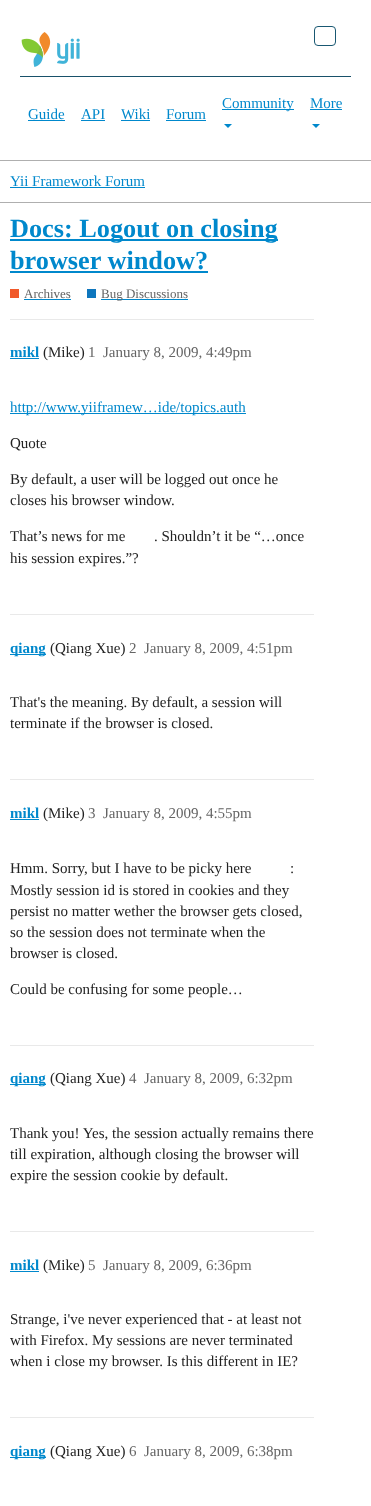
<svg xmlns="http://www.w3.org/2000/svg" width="371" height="1506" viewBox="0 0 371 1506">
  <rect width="100%" height="100%" fill="rgb(255,255,255)"/>
  <rect x="0" y="160" width="371" height="1" fill="rgb(175,175,175)"/>
  <image x="21" y="32" width="59" height="35" href="pic1.png"/>
  <rect x="314.5" y="26.5" width="21" height="19" rx="3.5" fill="none" stroke="rgb(25,88,114)"/>
  <rect x="20" y="76" width="331" height="1" fill="rgb(24,81,106)"/>
  <rect x="222" y="109" width="72" height="1" fill="rgb(0,136,204)"/>
  <text x="222" y="108" font-family="Liberation Serif" font-size="15" fill="rgb(0,136,204)">Community</text>
  <path d="M224 124H232L228 128Z" fill="rgb(0,136,204)"/>
  <text x="310" y="108" font-family="Liberation Serif" font-size="15" fill="rgb(0,136,204)">More</text>
  <rect x="310" y="109" width="32" height="1" fill="rgb(0,136,204)"/>
  <path d="M312 124H320L316 128Z" fill="rgb(0,136,204)"/>
  <text x="28" y="119" font-family="Liberation Serif" font-size="15" fill="rgb(0,136,204)">Guide</text>
  <rect x="28" y="120" width="37" height="1" fill="rgb(0,136,204)"/>
  <text x="81" y="119" font-family="Liberation Serif" font-size="15" fill="rgb(0,136,204)">API</text>
  <rect x="81" y="120" width="24" height="1" fill="rgb(0,136,204)"/>
  <text x="121" y="119" font-family="Liberation Serif" font-size="15" fill="rgb(0,136,204)">Wiki</text>
  <rect x="121" y="120" width="29" height="1" fill="rgb(0,136,204)"/>
  <text x="166" y="119" font-family="Liberation Serif" font-size="15" fill="rgb(0,136,204)">Forum</text>
  <rect x="166" y="120" width="40" height="1" fill="rgb(0,136,204)"/>
  <rect x="0" y="202" width="371" height="1" fill="rgb(175,175,175)"/>
  <text x="10" y="186" font-family="Liberation Serif" font-size="15" fill="rgb(0,136,204)">Yii Framework Forum</text>
  <rect x="10" y="187" width="135" height="1" fill="rgb(0,136,204)"/>
  <rect x="10" y="239" width="268" height="2" fill="rgb(0,136,204)"/>
  <g font-family="Liberation Serif" font-size="26.25" font-weight="bold" fill="rgb(0,136,204)">
    <text>
      <tspan x="10" y="237">Docs: Logout on closing</tspan>
      <tspan x="10" y="269">browser window?</tspan>
    </text>
  </g>
  <rect x="10" y="271" width="198" height="2" fill="rgb(0,136,204)"/>
  <rect x="10" y="289" width="9" height="9" fill="rgb(241,89,42)"/>
  <text x="24" y="298" font-family="Liberation Serif" font-size="13" fill="rgb(100,100,100)">Archives</text>
  <rect x="24" y="299" width="47" height="1" fill="rgb(0,136,204)"/>
  <rect x="87" y="289" width="9" height="9" fill="rgb(14,118,189)"/>
  <rect x="101" y="299" width="87" height="1" fill="rgb(0,136,204)"/>
  <text x="101" y="298" font-family="Liberation Serif" font-size="13" fill="rgb(100,100,100)">Bug Discussions</text>
  <rect x="10" y="319" width="304" height="1" fill="rgb(233,233,233)"/>
  <text x="10" y="357" font-family="Liberation Serif" font-size="15" font-weight="bold" fill="rgb(0,136,204)">mikl</text>
  <rect x="10" y="358" width="29" height="1" fill="rgb(0,136,204)"/>
  <text x="43" y="357" font-family="Liberation Serif" font-size="15" fill="rgb(34,34,34)">(Mike)</text>
  <g font-family="Liberation Serif" font-size="15" fill="rgb(100,100,100)">
    <text x="88" y="357">1</text>
    <text x="103" y="357">January 8, 2009, 4:49pm</text>
  </g>
  <rect x="10" y="413" width="236" height="1" fill="rgb(0,136,204)"/>
  <text x="10" y="412" font-family="Liberation Serif" font-size="15" fill="rgb(0,136,204)">http://www.yiiframew…ide/topics.auth</text>
  <g font-family="Liberation Serif" font-size="15" fill="rgb(34,34,34)">
    <text x="10" y="448">Quote</text>
    <text>
      <tspan x="10" y="484">By default, a user will be logged out once he</tspan>
      <tspan x="10" y="505">closes his browser window.</tspan>
    </text>
    <text x="10" y="541">That’s news for me</text>
    <text x="154" y="541">. Shouldn’t it be “…once</text>
    <text x="10" y="563">his session expires.”?</text>
  </g>
  <rect x="10" y="614" width="304" height="1" fill="rgb(233,233,233)"/>
  <rect x="10" y="654" width="36" height="1" fill="rgb(0,136,204)"/>
  <text x="10" y="653" font-family="Liberation Serif" font-size="15" font-weight="bold" fill="rgb(0,136,204)">qiang</text>
  <text x="50" y="653" font-family="Liberation Serif" font-size="15" fill="rgb(34,34,34)">(Qiang Xue)</text>
  <g font-family="Liberation Serif" font-size="15" fill="rgb(100,100,100)">
    <text x="129" y="653">2</text>
    <text x="144" y="653">January 8, 2009, 4:51pm</text>
  </g>
  <g font-family="Liberation Serif" font-size="15" fill="rgb(34,34,34)">
    <text>
      <tspan x="10" y="707">That's the meaning. By default, a session will</tspan>
      <tspan x="10" y="728">terminate if the browser is closed.</tspan>
    </text>
  </g>
  <rect x="10" y="779" width="304" height="1" fill="rgb(233,233,233)"/>
  <text x="10" y="818" font-family="Liberation Serif" font-size="15" font-weight="bold" fill="rgb(0,136,204)">mikl</text>
  <rect x="10" y="819" width="29" height="1" fill="rgb(0,136,204)"/>
  <text x="43" y="818" font-family="Liberation Serif" font-size="15" fill="rgb(34,34,34)">(Mike)</text>
  <g font-family="Liberation Serif" font-size="15" fill="rgb(100,100,100)">
    <text x="88" y="818">3</text>
    <text x="103" y="818">January 8, 2009, 4:55pm</text>
  </g>
  <g font-family="Liberation Serif" font-size="15" fill="rgb(34,34,34)">
    <text x="10" y="873">Hmm. Sorry, but I have to be picky here</text>
    <text x="290" y="873">:</text>
    <text>
      <tspan x="10" y="895">Mostly session id is stored in cookies and they</tspan>
      <tspan x="10" y="916">persist no matter wether the browser gets closed,</tspan>
      <tspan x="10" y="937">so the session does not terminate when the</tspan>
      <tspan x="10" y="958">browser is closed.</tspan>
    </text>
    <text x="10" y="994">Could be confusing for some people…</text>
  </g>
  <rect x="10" y="1045" width="304" height="1" fill="rgb(233,233,233)"/>
  <rect x="10" y="1084" width="36" height="1" fill="rgb(0,136,204)"/>
  <text x="10" y="1083" font-family="Liberation Serif" font-size="15" font-weight="bold" fill="rgb(0,136,204)">qiang</text>
  <text x="50" y="1083" font-family="Liberation Serif" font-size="15" fill="rgb(34,34,34)">(Qiang Xue)</text>
  <g font-family="Liberation Serif" font-size="15" fill="rgb(100,100,100)">
    <text x="129" y="1083">4</text>
    <text x="144" y="1083">January 8, 2009, 6:32pm</text>
  </g>
  <g font-family="Liberation Serif" font-size="15" fill="rgb(34,34,34)">
    <text>
      <tspan x="10" y="1138">Thank you! Yes, the session actually remains there</tspan>
      <tspan x="10" y="1159">till expiration, although closing the browser will</tspan>
      <tspan x="10" y="1180">expire the session cookie by default.</tspan>
    </text>
  </g>
  <rect x="10" y="1231" width="304" height="1" fill="rgb(233,233,233)"/>
  <text x="10" y="1270" font-family="Liberation Serif" font-size="15" font-weight="bold" fill="rgb(0,136,204)">mikl</text>
  <rect x="10" y="1271" width="29" height="1" fill="rgb(0,136,204)"/>
  <text x="43" y="1270" font-family="Liberation Serif" font-size="15" fill="rgb(34,34,34)">(Mike)</text>
  <g font-family="Liberation Serif" font-size="15" fill="rgb(100,100,100)">
    <text x="88" y="1270">5</text>
    <text x="103" y="1270">January 8, 2009, 6:36pm</text>
  </g>
  <g font-family="Liberation Serif" font-size="15" fill="rgb(34,34,34)">
    <text>
      <tspan x="10" y="1324">Strange, i've never experienced that - at least not</tspan>
      <tspan x="10" y="1345">with Firefox. My sessions are never terminated</tspan>
      <tspan x="10" y="1366">when i close my browser. Is this different in IE?</tspan>
    </text>
  </g>
  <rect x="10" y="1417" width="304" height="1" fill="rgb(233,233,233)"/>
  <rect x="10" y="1457" width="36" height="1" fill="rgb(0,136,204)"/>
  <text x="10" y="1456" font-family="Liberation Serif" font-size="15" font-weight="bold" fill="rgb(0,136,204)">qiang</text>
  <text x="50" y="1456" font-family="Liberation Serif" font-size="15" fill="rgb(34,34,34)">(Qiang Xue)</text>
  <g font-family="Liberation Serif" font-size="15" fill="rgb(100,100,100)">
    <text x="129" y="1456">6</text>
    <text x="144" y="1456">January 8, 2009, 6:38pm</text>
  </g>
</svg>
